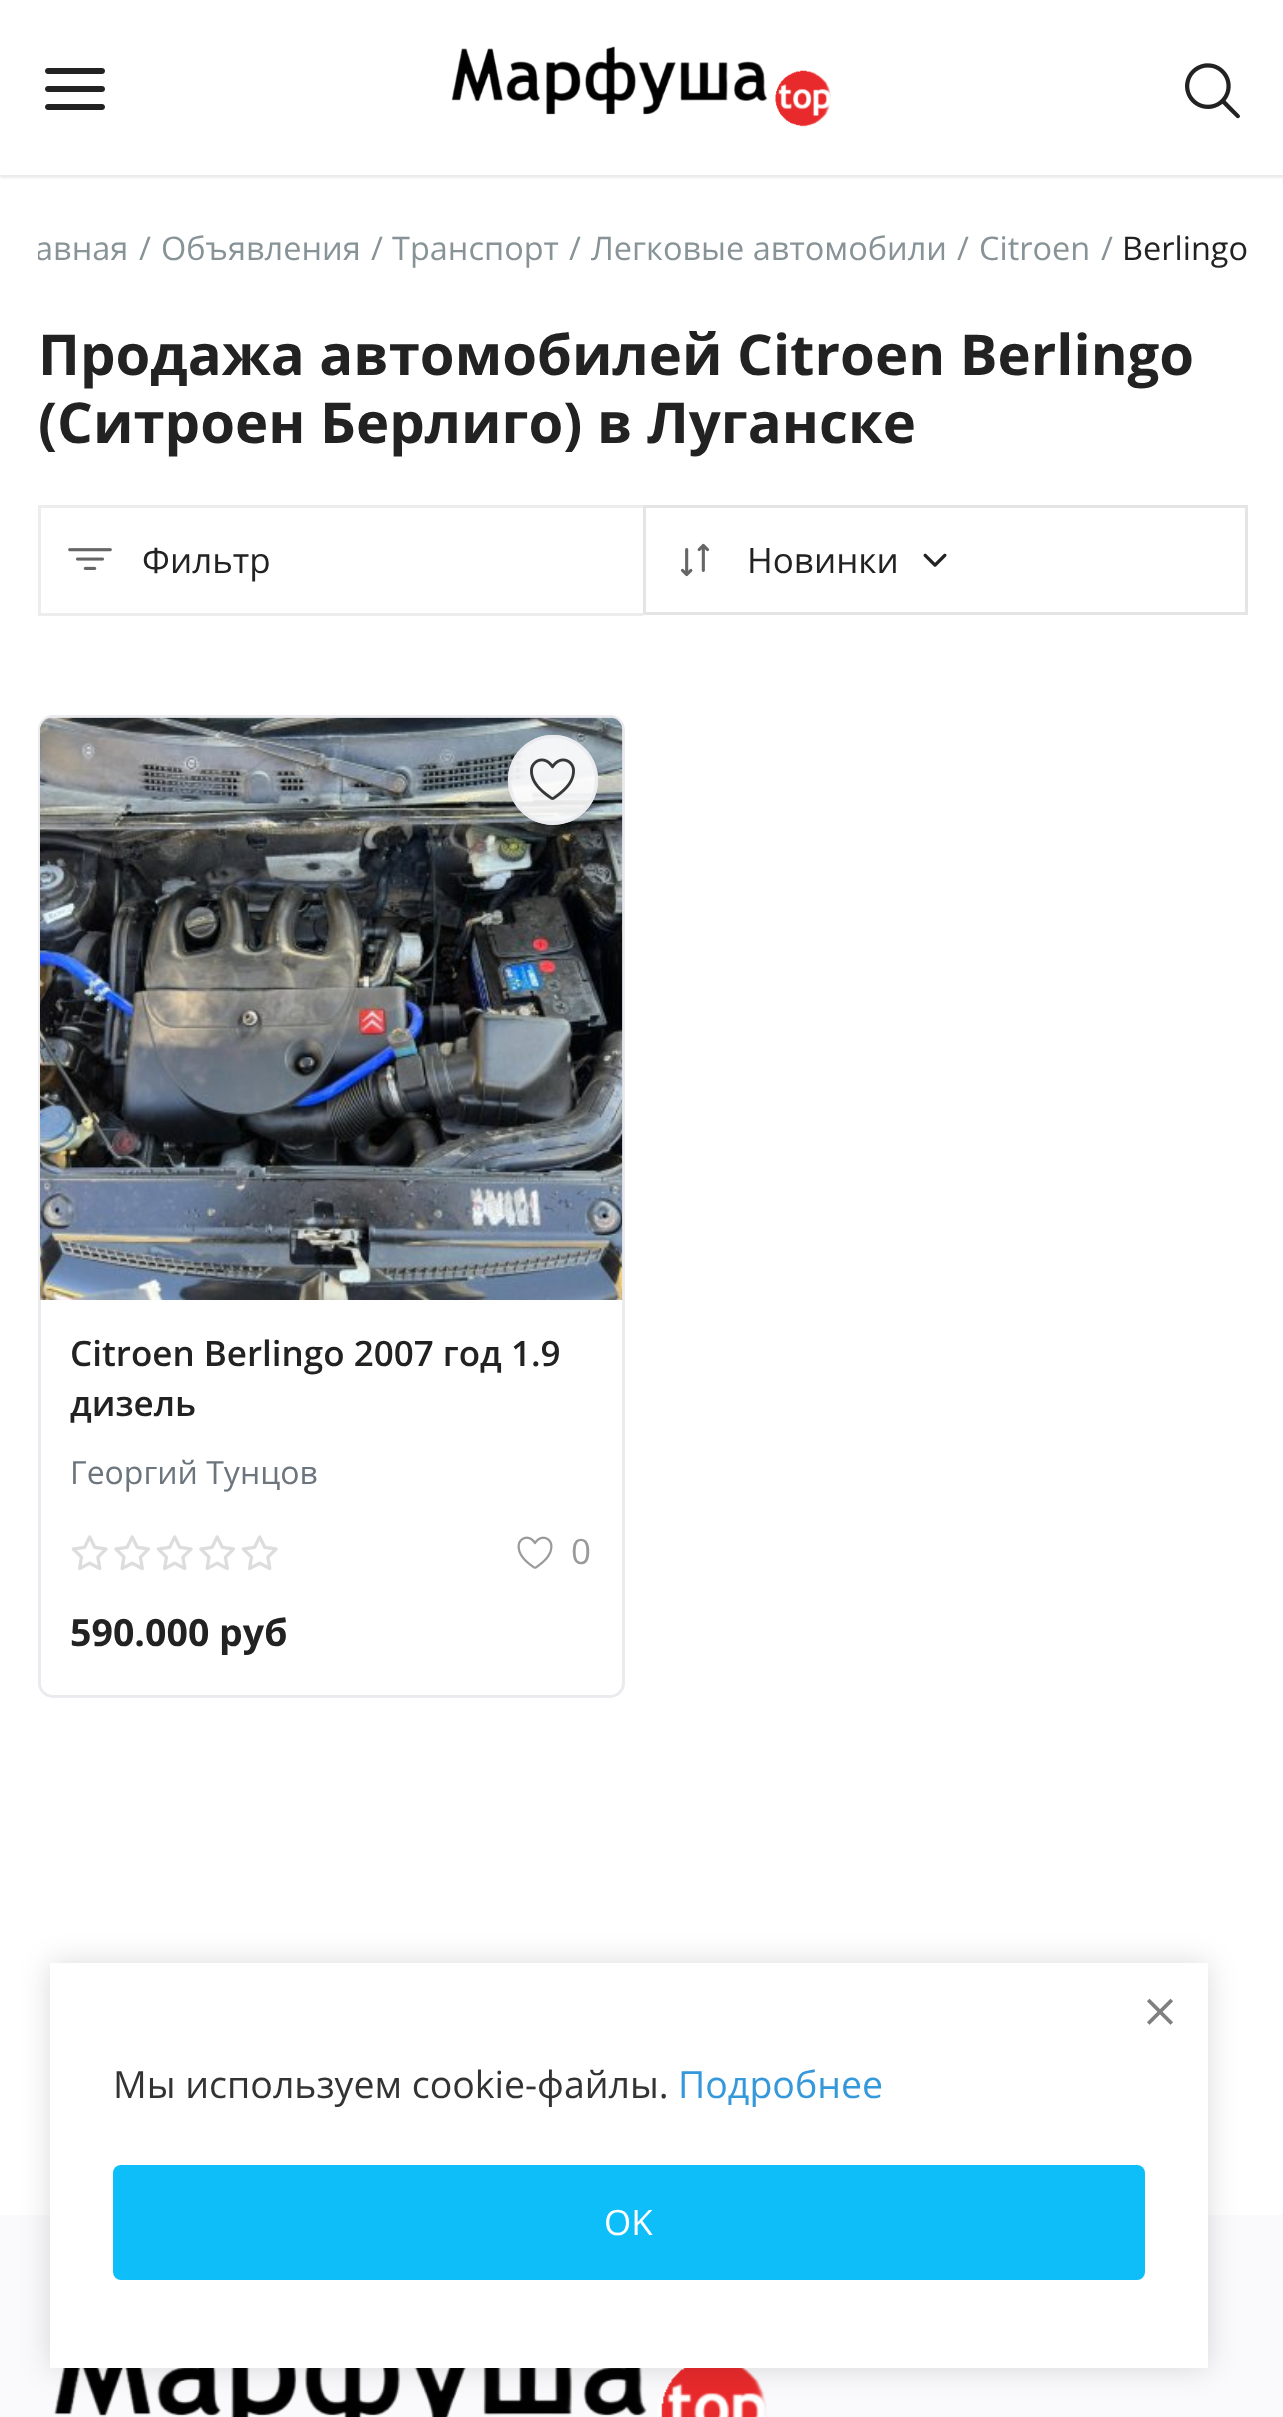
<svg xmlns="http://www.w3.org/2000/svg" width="1283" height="2417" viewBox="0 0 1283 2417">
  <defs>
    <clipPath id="clip1"><rect x="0" y="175" width="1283" height="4"/></clipPath>
    <clipPath id="clip2"><rect x="38" y="225" width="1210" height="83" rx="10"/></clipPath>
  </defs>
  <rect width="100%" height="100%" fill="rgb(255,255,255)"/>
  <g clip-path="url(#clip1)">
    <rect x="0" y="3" width="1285" height="175" fill="rgba(0,0,0,0.08)" filter="blur(1px)"/>
  </g>
  <image x="45" y="68" width="60" height="42" href="pic1.png"/>
  <image x="451" y="46" width="380" height="81" href="pic2.png"/>
  <image x="1185" y="63" width="55" height="56" href="pic3.png"/>
  <g clip-path="url(#clip2)">
    <text x="35" y="260" font-family="Open Sans" font-size="32.5" fill="rgb(136,147,151)">авная</text>
  </g>
  <g font-family="Open Sans" font-size="32.5" fill="rgb(136,147,151)">
    <text x="139" y="260">/</text>
    <text x="161" y="260">Объявления</text>
    <text x="371" y="260">/</text>
    <text x="392" y="260">Транспорт</text>
    <text x="569" y="260">/</text>
    <text x="591" y="260">Легковые автомобили</text>
    <text x="957" y="260">/</text>
    <text x="979" y="260">Citroen</text>
    <text x="1101" y="260">/</text>
  </g>
  <text x="1122" y="260" font-family="Open Sans" font-size="32.5" fill="rgb(34,34,34)">Berlingo</text>
  <g font-family="Open Sans" font-size="56.25" font-weight="bold" fill="rgb(34,34,34)">
    <text>
      <tspan x="38" y="375">Продажа автомобилей Citroen Berlingo</tspan>
      <tspan x="38" y="443">(Ситроен Берлиго) в Луганске</tspan>
    </text>
  </g>
  <rect x="38" y="505" width="605" height="3" fill="rgb(237,237,237)"/>
  <rect x="38" y="613" width="605" height="3" fill="rgb(237,237,237)"/>
  <rect x="38" y="505" width="3" height="110" fill="rgb(237,237,237)"/>
  <image x="68" y="548" width="44" height="22" href="pic4.png"/>
  <text x="142" y="573" font-family="Open Sans" font-size="35" fill="rgb(34,34,34)">Фильтр</text>
  <rect x="644.5" y="506.5" width="602" height="107" fill="none" stroke="rgb(229,229,229)" stroke-width="3"/>
  <image x="680" y="543" width="30" height="34" href="pic5.png"/>
  <text x="747" y="573" font-family="Open Sans" font-size="35" fill="rgb(34,34,34)">Новинки</text>
  <image x="923" y="553" width="24" height="14" href="pic6.png"/>
  <rect x="39.5" y="716.5" width="584" height="980" rx="13.5" fill="none" stroke="rgb(234,234,239)" stroke-width="3"/>
  <image x="40" y="717" width="583" height="583" href="pic7.png"/>
  <circle cx="553" cy="780" r="45" fill="rgba(255,255,255,0.9)"/>
  <circle cx="553" cy="780" r="43.5" fill="none" stroke="rgba(234,234,239,0.9)" stroke-width="3"/>
  <image x="530" y="758" width="45" height="42" href="pic8.png"/>
  <g font-family="Open Sans" font-size="35" font-weight="600" fill="rgb(34,34,34)">
    <text>
      <tspan x="70" y="1366">Citroen Berlingo 2007 год 1.9</tspan>
      <tspan x="70" y="1416">дизель</tspan>
    </text>
  </g>
  <text x="70" y="1484" font-family="Open Sans" font-size="32" fill="rgb(108,117,125)">Георгий Тунцов</text>
  <image x="71" y="1535" width="37" height="36" href="pic9.png"/>
  <image x="114" y="1535" width="36" height="36" href="pic10.png"/>
  <image x="156" y="1535" width="37" height="36" href="pic9.png"/>
  <image x="199" y="1535" width="36" height="36" href="pic10.png"/>
  <image x="241" y="1535" width="37" height="36" href="pic9.png"/>
  <image x="517" y="1536" width="36" height="33" href="pic11.png"/>
  <text x="571" y="1564" font-family="Open Sans" font-size="35" fill="rgb(154,154,154)">0</text>
  <text x="70" y="1646" font-family="Open Sans" font-size="37.5" font-weight="bold" fill="rgb(34,34,34)">590.000 руб</text>
  <rect x="0" y="2215" width="1283" height="202" fill="rgb(250,250,252)"/>
  <image x="53" y="2368" width="714" height="49" href="pic13.png"/>
  <rect x="50" y="1963" width="1158" height="405" fill="rgba(0,0,0,0.14)" filter="blur(15px)"/>
  <rect x="50" y="1963" width="1158" height="405" fill="rgb(255,255,255)"/>
  <image x="1147" y="1998" width="26" height="27" href="pic12.png"/>
  <text x="113" y="2098" font-family="Open Sans" font-size="37.5" fill="rgb(51,51,51)">Мы используем cookie-файлы.</text>
  <text x="678" y="2098" font-family="Open Sans" font-size="37.5" fill="rgb(53,152,219)">Подробнее</text>
  <rect x="113" y="2165" width="1032" height="115" rx="8" fill="rgb(14,190,249)"/>
  <text x="604" y="2235" font-family="Open Sans" font-size="35" fill="rgb(255,255,255)">OK</text>
</svg>
